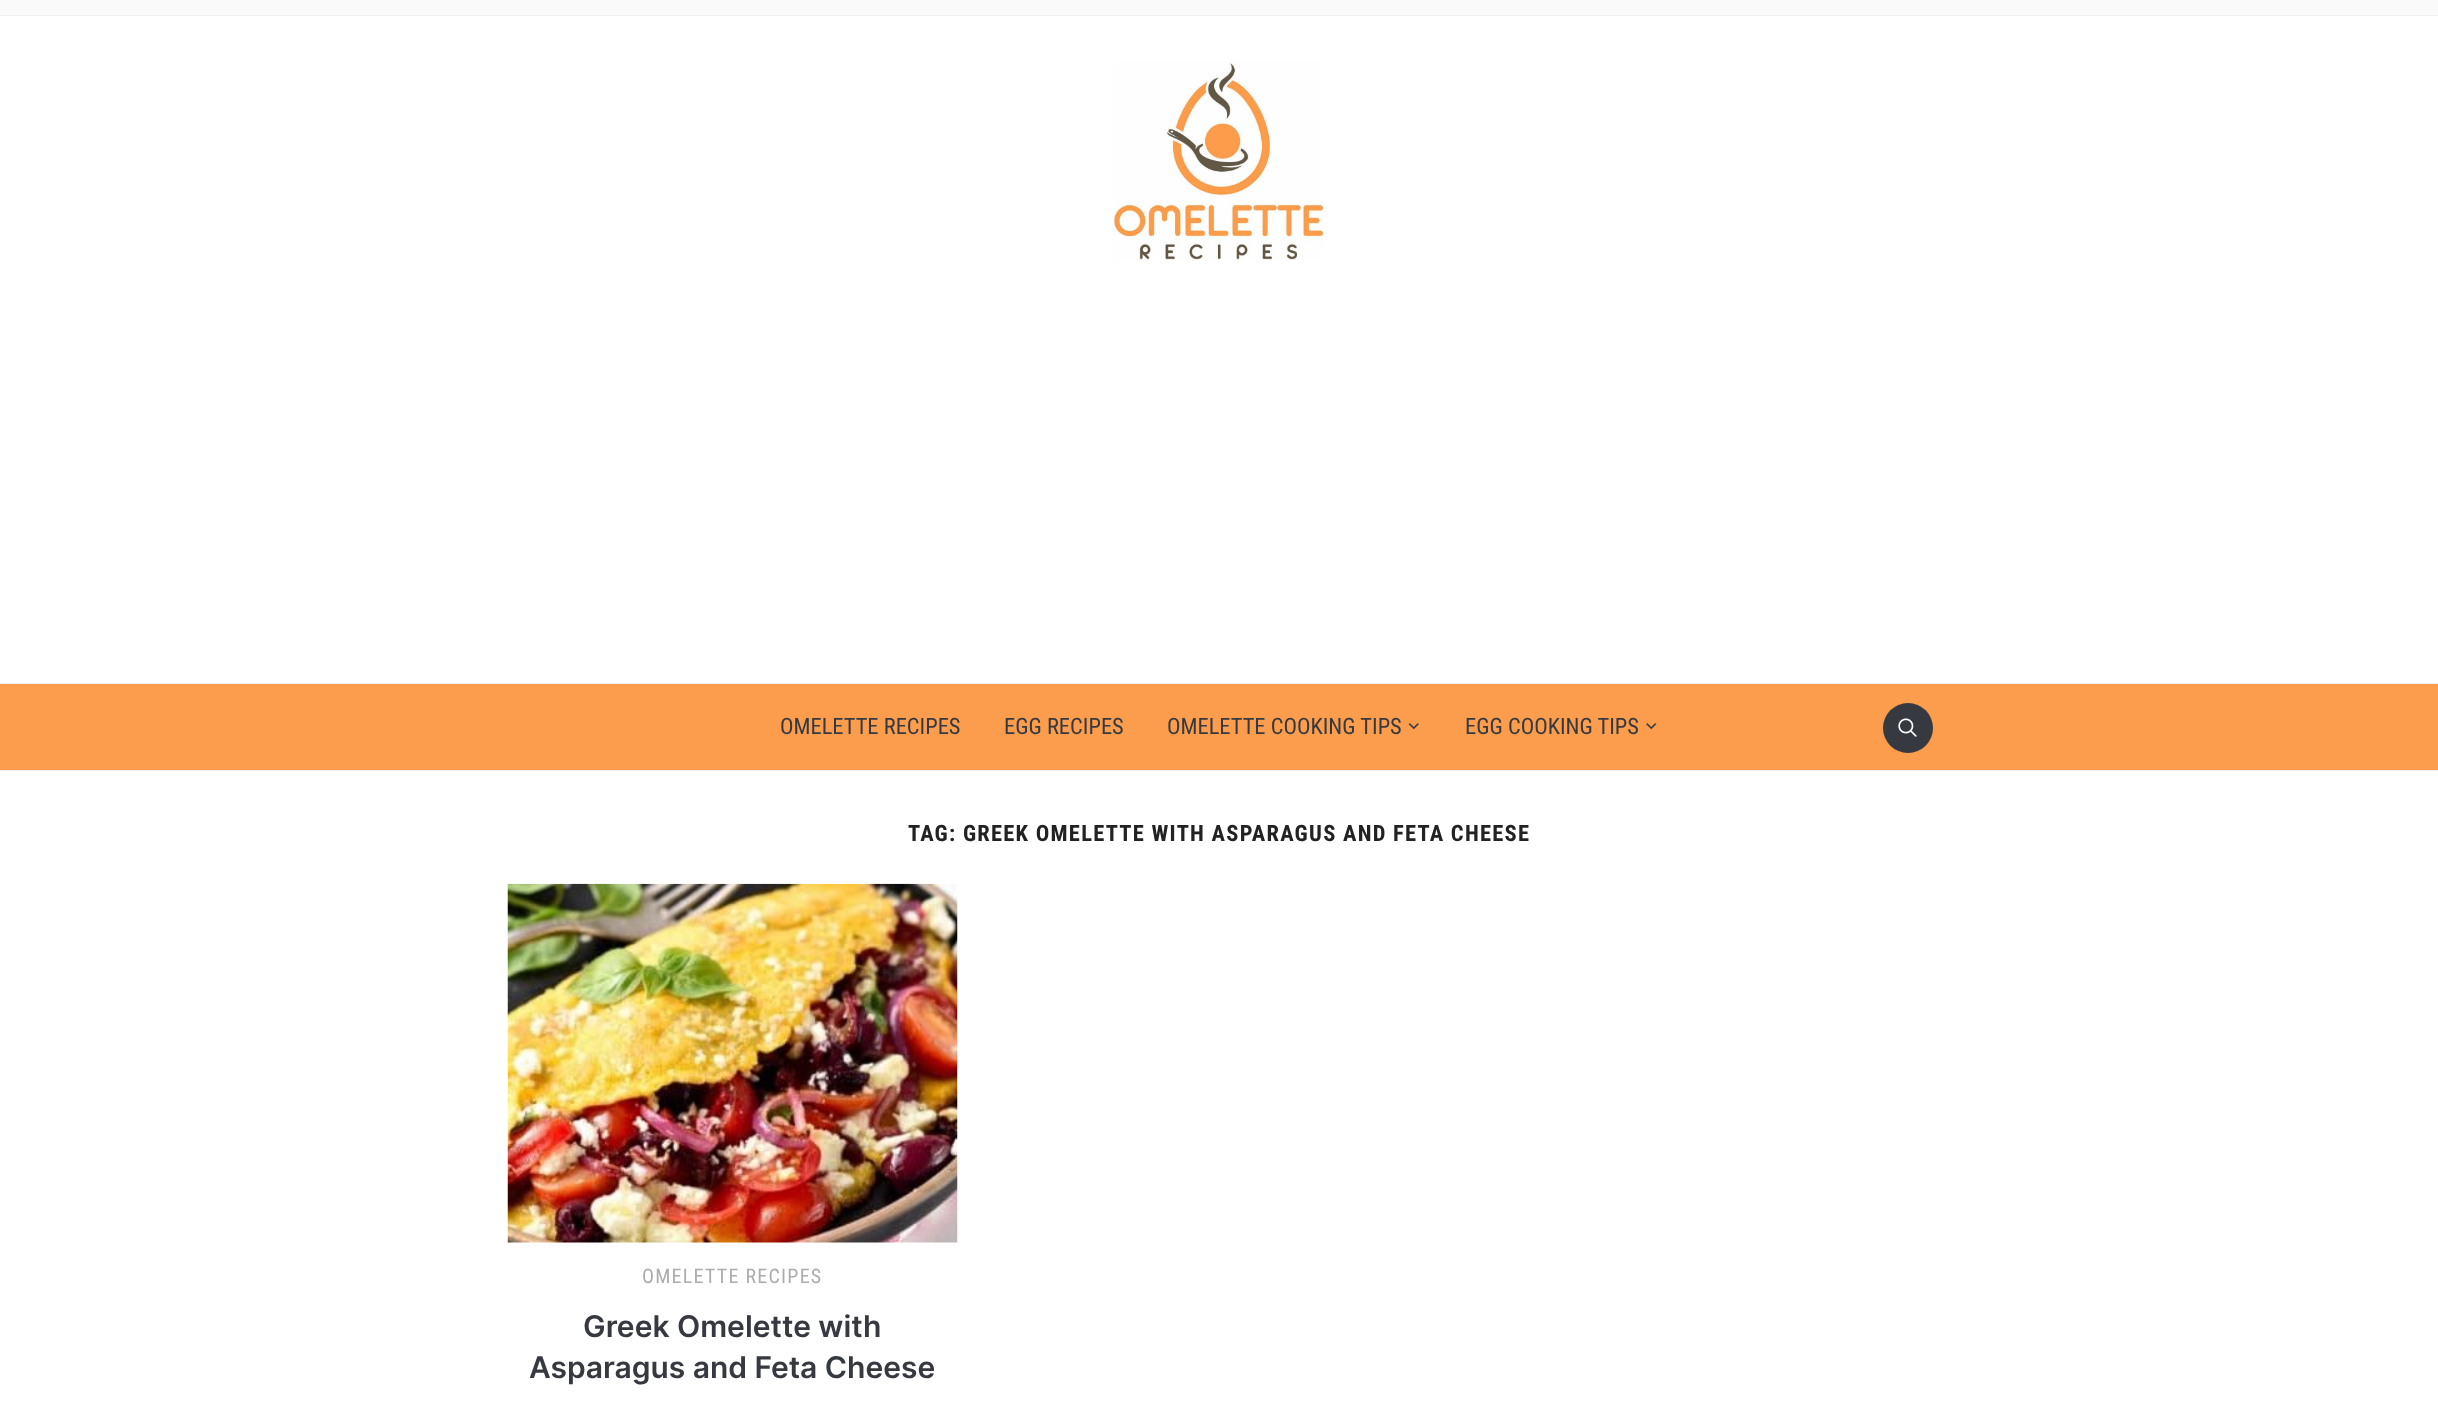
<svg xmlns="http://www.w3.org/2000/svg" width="2438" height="1406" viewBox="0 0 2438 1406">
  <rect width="100%" height="100%" fill="rgb(255,255,255)"/>
  <rect x="0" y="0" width="2438" height="15" fill="rgb(250,250,250)"/>
  <rect x="0" y="15" width="2438" height="1" fill="rgb(240,240,240)"/>
  <image x="1113" y="61" width="211" height="200" href="pic1.png"/>
  <rect x="0" y="684" width="2438" height="86" fill="rgb(252,157,77)"/>
  <rect x="0" y="683" width="2438" height="1" fill="rgb(240,240,240)"/>
  <rect x="0" y="770" width="2438" height="1" fill="rgb(240,240,240)"/>
  <g font-family="Roboto Condensed" font-size="22.5" fill="rgb(54,57,64)">
    <text x="780" y="734">OMELETTE RECIPES</text>
    <text x="1004" y="734">EGG RECIPES</text>
    <text x="1167" y="734">OMELETTE COOKING TIPS</text>
  </g>
  <image x="1408" y="723" width="11" height="7" href="pic2.png"/>
  <text x="1465" y="734" font-family="Roboto Condensed" font-size="22.5" fill="rgb(54,57,64)">EGG COOKING TIPS</text>
  <image x="1646" y="723" width="11" height="7" href="pic3.png"/>
  <circle cx="1908" cy="728" r="25" fill="rgb(54,57,64)"/>
  <image x="1898" y="718" width="19" height="19" href="pic4.png"/>
  <text x="908" y="841" font-family="Roboto Condensed" font-size="22.5" font-weight="bold" letter-spacing="1.25" fill="rgb(34,34,34)">TAG: GREEK OMELETTE WITH ASPARAGUS AND FETA CHEESE</text>
  <image x="507" y="883" width="451" height="360" href="pic5.png"/>
  <text x="642" y="1283" font-family="Roboto Condensed" font-size="20" letter-spacing="1.25" fill="rgb(172,172,172)">OMELETTE RECIPES</text>
  <g font-family="Inter" font-size="30" font-weight="600" fill="rgb(54,57,64)">
    <text x="583" y="1337">Greek Omelette with</text>
    <text x="529" y="1378">Asparagus and Feta Cheese</text>
  </g>
</svg>
